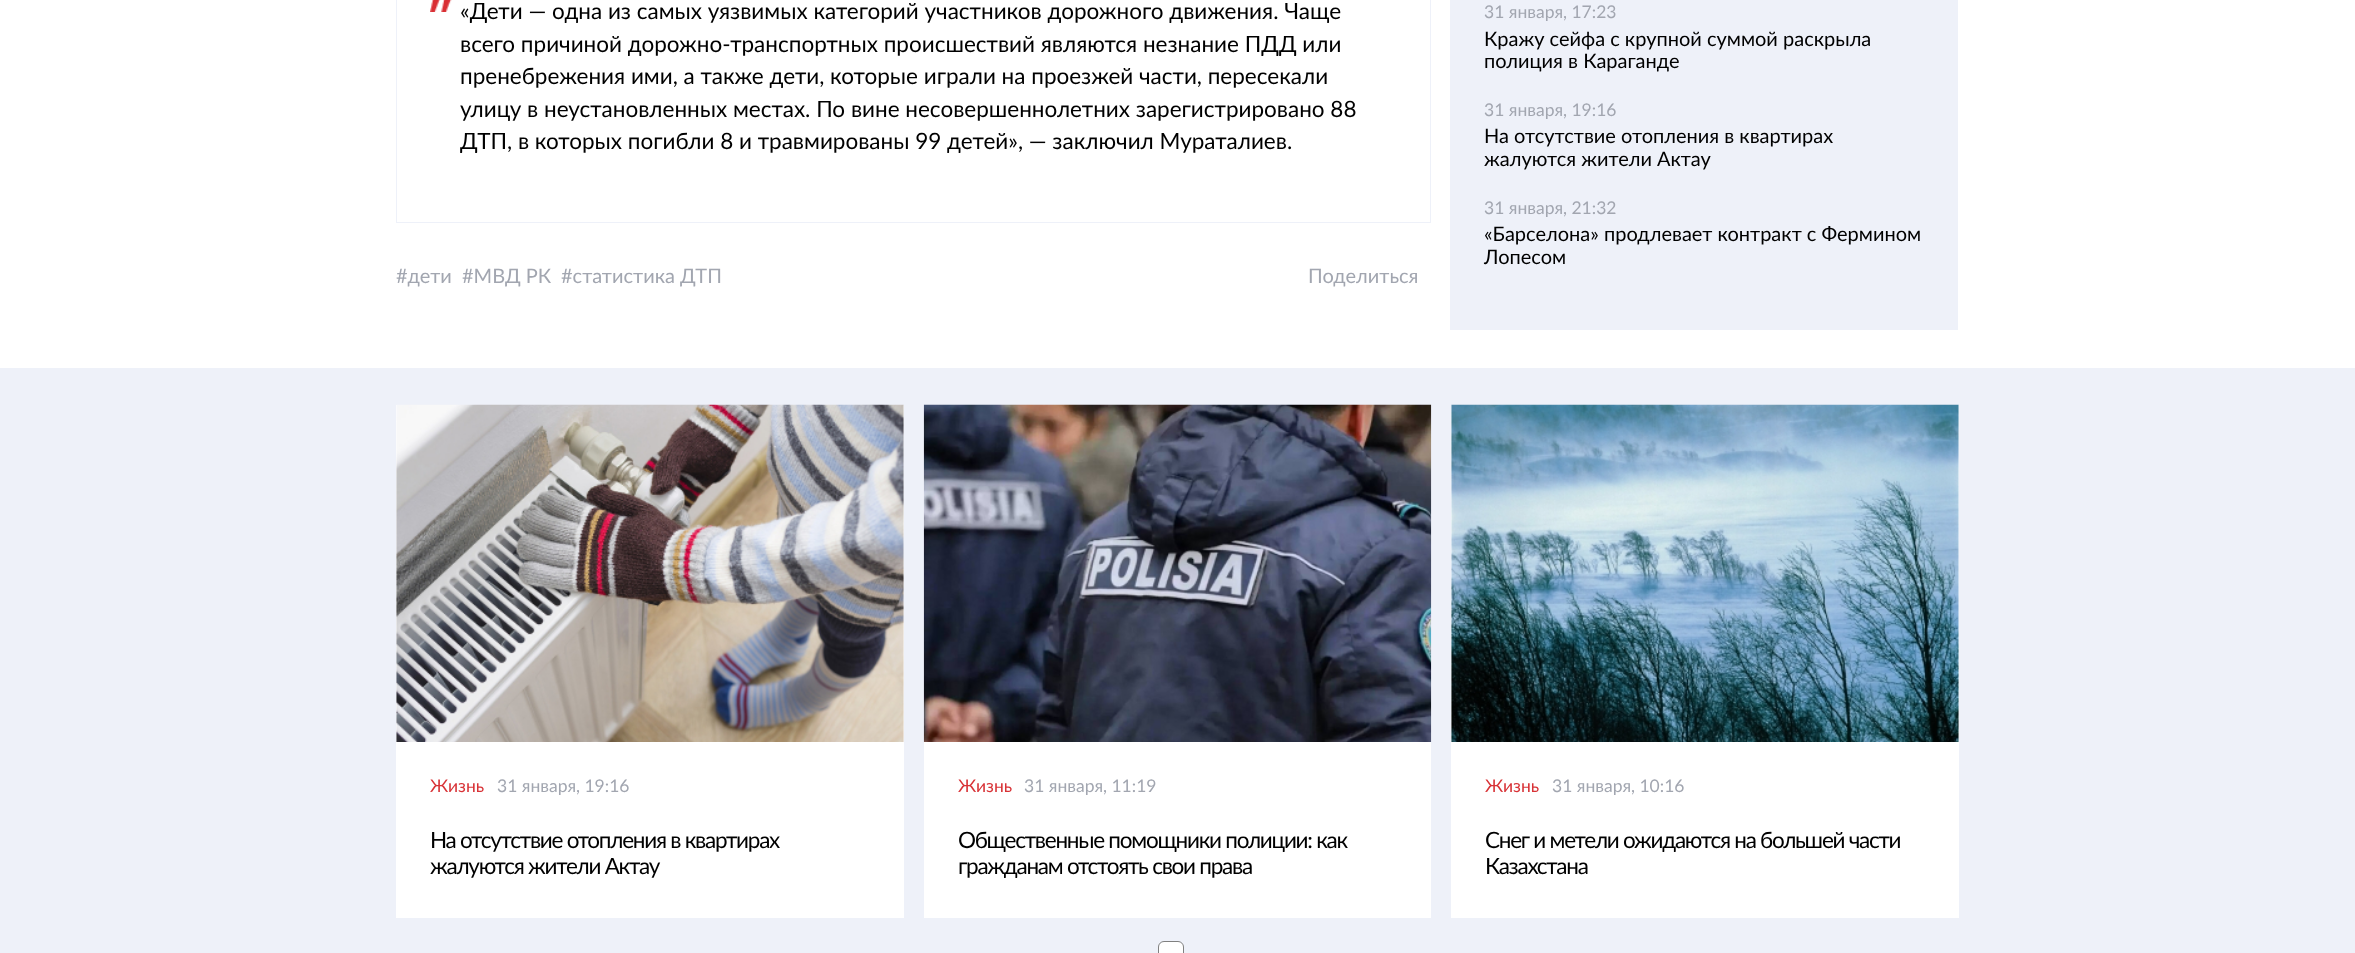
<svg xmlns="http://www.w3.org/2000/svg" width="2355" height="953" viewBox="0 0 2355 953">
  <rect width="100%" height="100%" fill="rgb(255,255,255)"/>
  <rect x="396.5" y="-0.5" width="1034" height="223" fill="none" stroke="rgb(238,241,249)"/>
  <image x="430" y="0" width="22" height="12" href="pic1.png"/>
  <g font-family="Lato" font-size="22.5" fill="rgb(0,0,0)">
    <text>
      <tspan x="460" y="19">«Дети — одна из самых уязвимых категорий участников дорожного движения. Чаще</tspan>
      <tspan x="460" y="52">всего причиной дорожно-транспортных происшествий являются незнание ПДД или</tspan>
      <tspan x="460" y="84">пренебрежения ими, а также дети, которые играли на проезжей части, пересекали</tspan>
      <tspan x="460" y="117">улицу в неустановленных местах. По вине несовершеннолетних зарегистрировано 88</tspan>
      <tspan x="460" y="149">ДТП, в которых погибли 8 и травмированы 99 детей», — заключил Мураталиев.</tspan>
    </text>
  </g>
  <g font-family="Lato" font-size="20" fill="rgb(162,166,176)">
    <text x="396" y="283">#дети</text>
    <text x="462" y="283">#МВД РК</text>
    <text x="561" y="283">#статистика ДТП</text>
    <text x="1308" y="283">Поделиться</text>
  </g>
  <rect x="1450" y="0" width="508" height="330" fill="rgb(238,241,249)"/>
  <text x="1484" y="18" font-family="Lato" font-size="17.5" fill="rgb(162,166,176)">31 января, 17:23</text>
  <g font-family="Lato" font-size="20" fill="rgb(0,0,0)">
    <text>
      <tspan x="1484" y="46">Кражу сейфа с крупной суммой раскрыла</tspan>
      <tspan x="1484" y="68">полиция в Караганде</tspan>
    </text>
  </g>
  <text x="1484" y="116" font-family="Lato" font-size="17.5" fill="rgb(162,166,176)">31 января, 19:16</text>
  <g font-family="Lato" font-size="20" fill="rgb(0,0,0)">
    <text>
      <tspan x="1484" y="143">На отсутствие отопления в квартирах</tspan>
      <tspan x="1484" y="166">жалуются жители Актау</tspan>
    </text>
  </g>
  <text x="1484" y="214" font-family="Lato" font-size="17.5" fill="rgb(162,166,176)">31 января, 21:32</text>
  <g font-family="Lato" font-size="20" fill="rgb(0,0,0)">
    <text>
      <tspan x="1484" y="241">«Барселона» продлевает контракт с Фермином</tspan>
      <tspan x="1484" y="264">Лопесом</tspan>
    </text>
  </g>
  <rect x="0" y="368" width="2355" height="585" fill="rgb(238,241,249)"/>
  <rect x="396" y="405" width="508" height="513" fill="rgb(255,255,255)"/>
  <image x="396" y="404" width="508" height="338" href="pic2.png"/>
  <text x="430" y="792" font-family="Lato" font-size="17.5" fill="rgb(216,50,54)">Жизнь</text>
  <text x="497" y="792" font-family="Lato" font-size="17.5" fill="rgb(162,166,176)">31 января, 19:16</text>
  <g font-family="Lato" font-size="22.5" letter-spacing="-1.25" fill="rgb(0,0,0)">
    <text>
      <tspan x="430" y="848">На отсутствие отопления в квартирах</tspan>
      <tspan x="430" y="874">жалуются жители Актау</tspan>
    </text>
  </g>
  <rect x="924" y="742" width="507" height="176" fill="rgb(255,255,255)"/>
  <image x="923" y="404" width="509" height="338" href="pic3.png"/>
  <text x="958" y="792" font-family="Lato" font-size="17.5" fill="rgb(216,50,54)">Жизнь</text>
  <text x="1024" y="792" font-family="Lato" font-size="17.5" fill="rgb(162,166,176)">31 января, 11:19</text>
  <g font-family="Lato" font-size="22.5" letter-spacing="-1.25" fill="rgb(0,0,0)">
    <text>
      <tspan x="958" y="848">Общественные помощники полиции: как</tspan>
      <tspan x="958" y="874">гражданам отстоять свои права</tspan>
    </text>
  </g>
  <rect x="1451" y="405" width="508" height="513" fill="rgb(255,255,255)"/>
  <image x="1451" y="404" width="508" height="338" href="pic4.png"/>
  <text x="1485" y="792" font-family="Lato" font-size="17.5" fill="rgb(216,50,54)">Жизнь</text>
  <text x="1552" y="792" font-family="Lato" font-size="17.5" fill="rgb(162,166,176)">31 января, 10:16</text>
  <g font-family="Lato" font-size="22.5" letter-spacing="-1.25" fill="rgb(0,0,0)">
    <text>
      <tspan x="1485" y="848">Снег и метели ожидаются на большей части</tspan>
      <tspan x="1485" y="874">Казахстана</tspan>
    </text>
  </g>
  <rect x="1158.5" y="941.5" width="25" height="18" rx="5.5" fill="rgb(255,255,255)" stroke="rgb(128,128,128)"/>
</svg>
